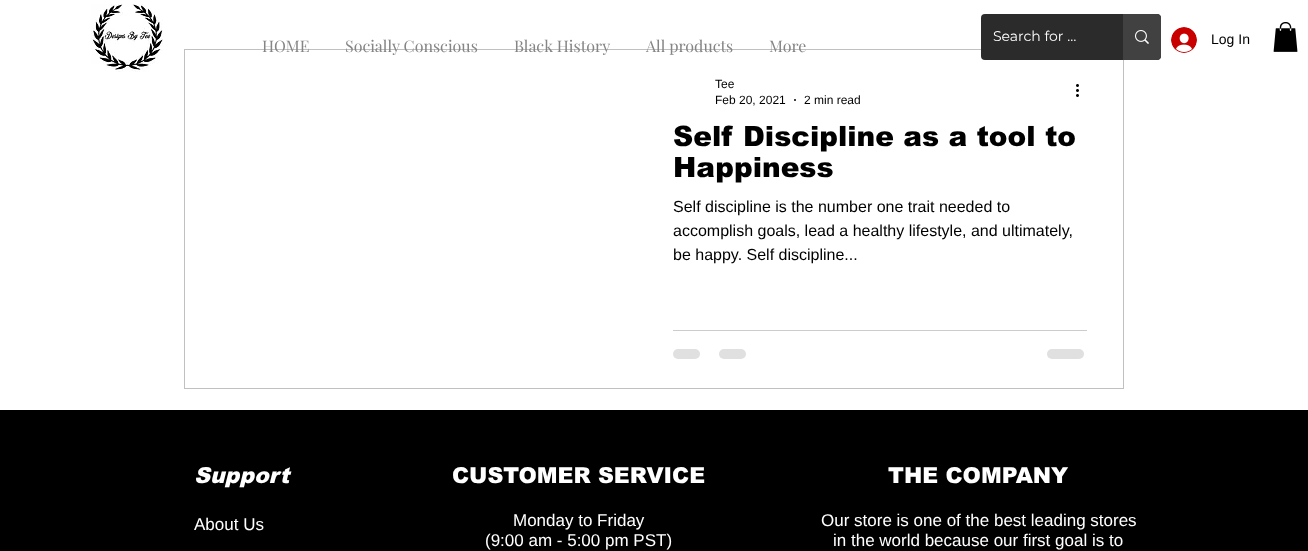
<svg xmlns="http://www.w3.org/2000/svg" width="1308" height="551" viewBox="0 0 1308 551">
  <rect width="100%" height="100%" fill="rgb(255,255,255)"/>
  <image x="91" y="4" width="72" height="68" href="pic1.png"/>
  <rect x="184.5" y="49.5" width="939" height="339" fill="none" stroke="rgb(192,192,192)"/>
  <g font-family="Playfair Display" font-size="16" fill="rgb(133,133,133)">
    <text x="262" y="52">HOME</text>
    <text x="345" y="52">Socially Conscious</text>
    <text x="514" y="52">Black History</text>
    <text x="646" y="52">All products</text>
    <text x="769" y="52">More</text>
  </g>
  <rect x="981" y="14" width="180" height="46" rx="4" fill="rgb(43,43,43)"/>
  <text x="993" y="41" font-family="Montserrat" font-size="14" fill="rgb(255,255,255)">Search for …</text>
  <path d="M1123 14H1157C1159 14 1161 16 1161 18V56C1161 58 1159 60 1157 60H1123Z" fill="rgb(65,65,65)"/>
  <image x="1135" y="30" width="14" height="14" href="pic2.png"/>
  <image x="1171" y="27" width="26" height="26" href="pic3.png"/>
  <text x="1211" y="44" font-family="Liberation Sans" font-size="14" fill="rgb(0,0,0)">Log In</text>
  <image x="1273" y="22" width="25" height="30" href="pic4.png"/>
  <g font-family="Liberation Sans" font-size="12" fill="rgb(0,0,0)">
    <text>
      <tspan x="715" y="88">Tee</tspan>
      <tspan x="715" y="104">Feb 20, 2021</tspan>
    </text>
  </g>
  <circle cx="795" cy="100" r="1" fill="rgb(0,0,0)"/>
  <text x="804" y="104" font-family="Liberation Sans" font-size="12" fill="rgb(0,0,0)">2 min read</text>
  <image x="1076" y="84" width="3" height="13" href="pic5.png"/>
  <g font-family="arial" font-size="28" font-weight="900" fill="rgb(0,0,0)">
    <text>
      <tspan x="673" y="146">Self Discipline as a tool to</tspan>
      <tspan x="673" y="177">Happiness</tspan>
    </text>
  </g>
  <g font-family="Liberation Sans" font-size="16" fill="rgb(0,0,0)">
    <text>
      <tspan x="673" y="212">Self discipline is the number one trait needed to</tspan>
      <tspan x="673" y="236">accomplish goals, lead a healthy lifestyle, and ultimately,</tspan>
      <tspan x="673" y="260">be happy. Self discipline...</tspan>
    </text>
  </g>
  <rect x="673" y="330" width="414" height="1" fill="rgb(204,204,204)"/>
  <rect x="673" y="349" width="27" height="10" rx="5" fill="rgb(224,224,224)"/>
  <rect x="719" y="349" width="27" height="10" rx="5" fill="rgb(224,224,224)"/>
  <rect x="1047" y="349" width="37" height="10" rx="5" fill="rgb(224,224,224)"/>
  <rect x="0" y="410" width="1308" height="141" fill="rgb(0,0,0)"/>
  <text x="194" y="483" font-family="arial" font-size="22" font-weight="900" font-style="italic" fill="rgb(255,255,255)">Support</text>
  <text x="194" y="530" font-family="Liberation Sans" font-size="17" fill="rgb(255,255,255)">About Us</text>
  <text x="452" y="483" font-family="arial" font-size="22" font-weight="900" fill="rgb(255,255,255)">CUSTOMER SERVICE</text>
  <g font-family="Liberation Sans" font-size="17" fill="rgb(255,255,255)">
    <text x="513" y="526">Monday to Friday</text>
    <text x="485" y="546">(9:00 am - 5:00 pm PST)</text>
  </g>
  <text x="888" y="483" font-family="arial" font-size="22" font-weight="900" fill="rgb(255,255,255)">THE COMPANY</text>
  <g font-family="Liberation Sans" font-size="17" fill="rgb(255,255,255)">
    <text x="821" y="526">Our store is one of the best leading stores</text>
    <text x="833" y="546">in the world because our first goal is to</text>
  </g>
</svg>
